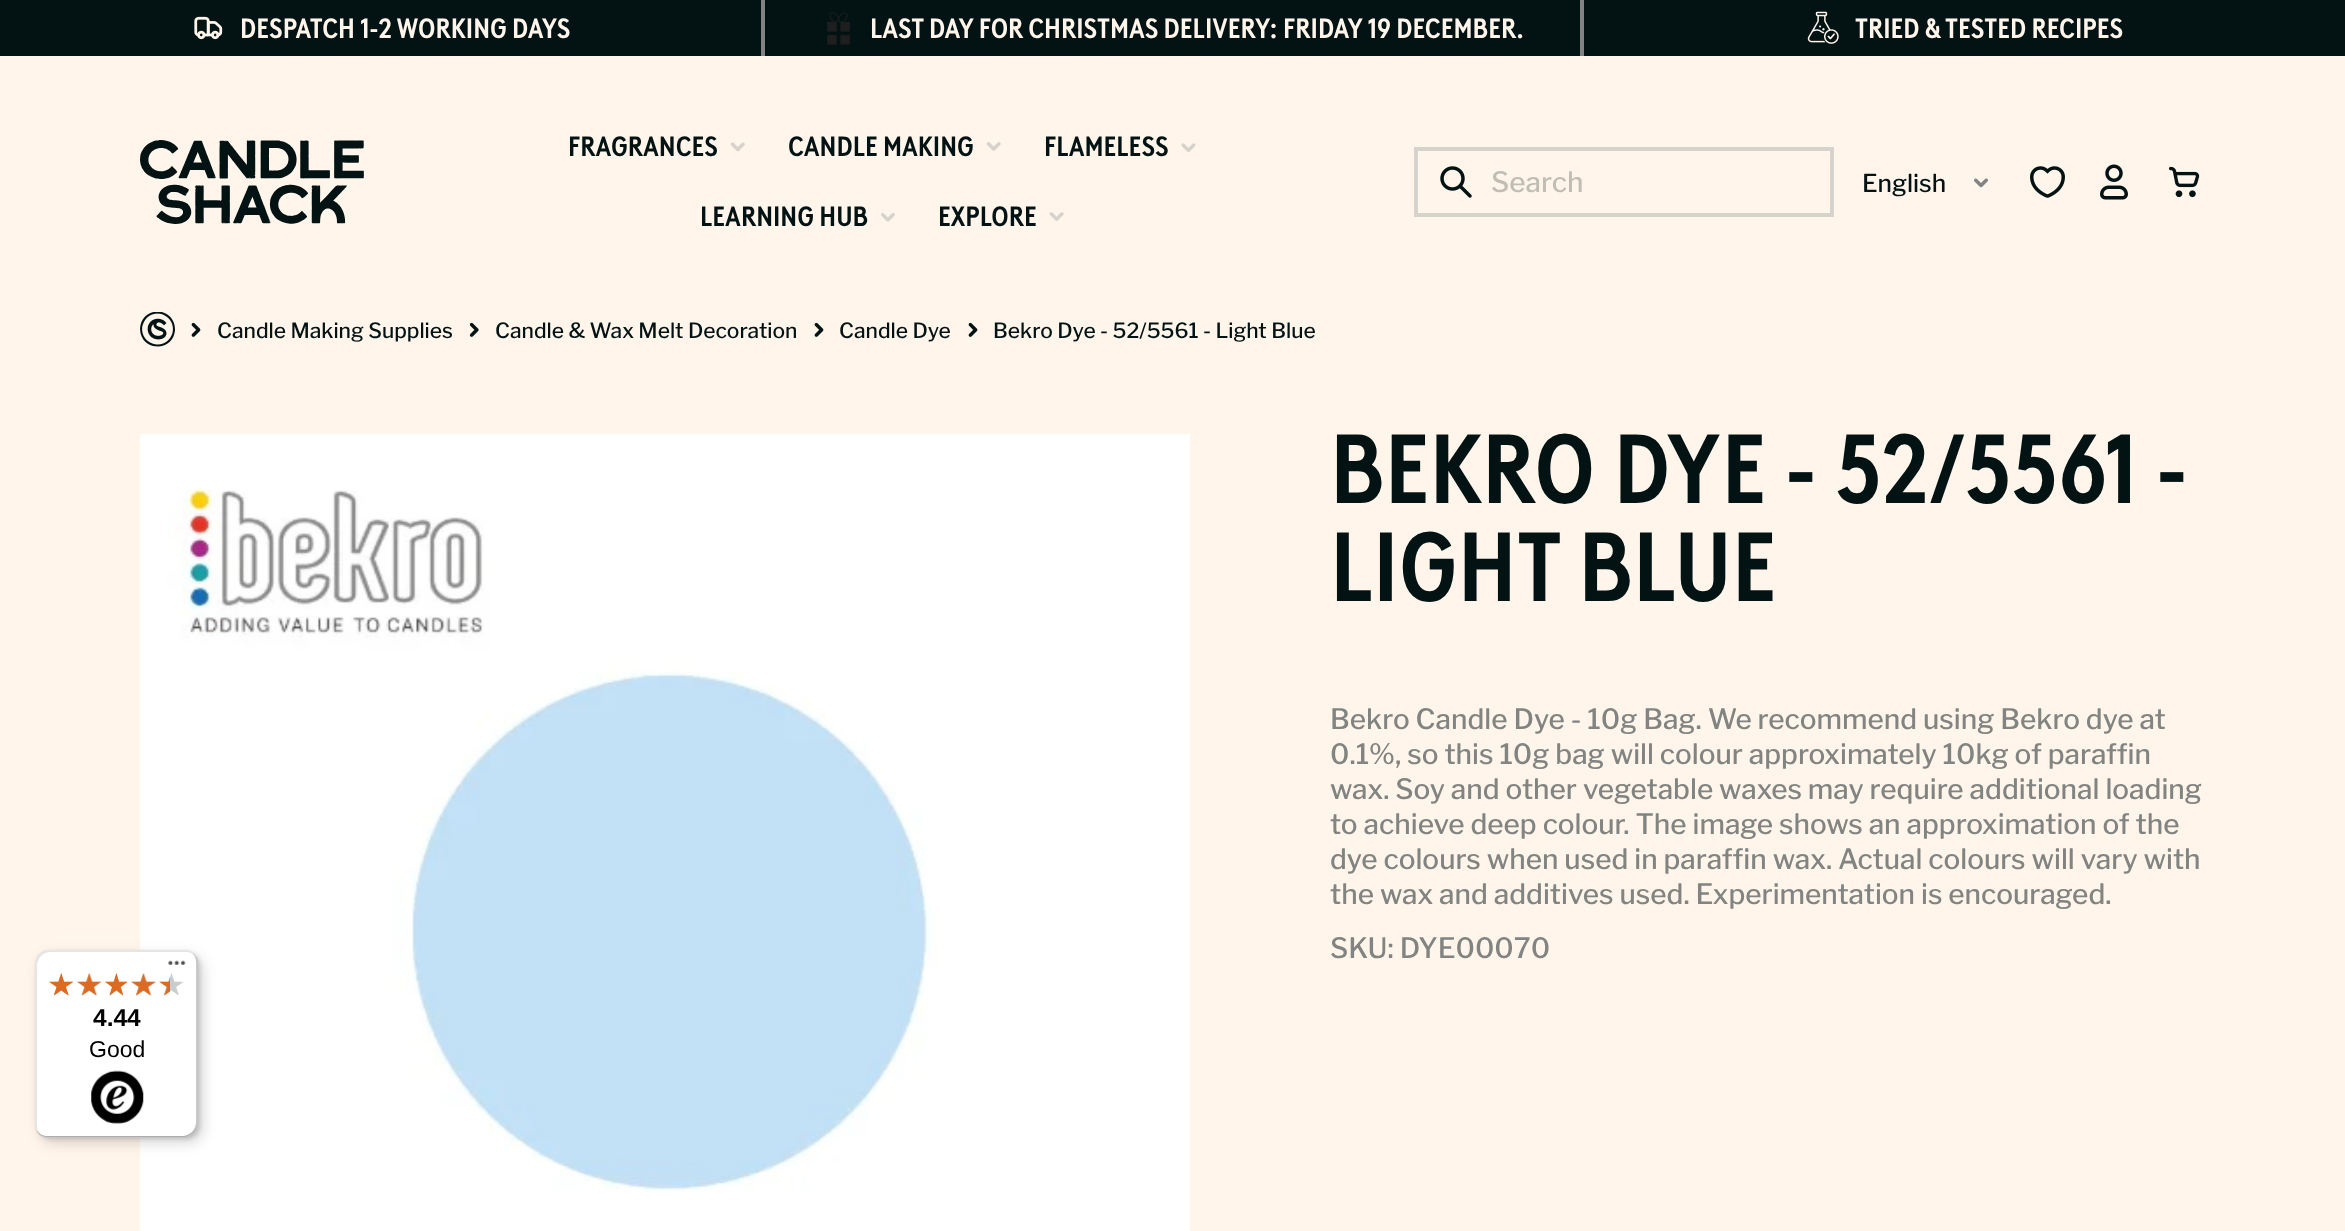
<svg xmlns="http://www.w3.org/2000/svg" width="2345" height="1231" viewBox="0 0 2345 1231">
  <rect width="100%" height="100%" fill="rgb(255,245,235)"/>
  <rect x="0" y="0" width="2345" height="56" fill="rgb(3,19,20)"/>
  <rect x="761" y="0" width="4" height="56" fill="rgb(130,130,130)"/>
  <image x="194" y="16" width="29" height="24" href="pic1.png"/>
  <text x="240" y="38" font-family="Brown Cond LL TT" font-size="28" font-weight="bold" fill="rgb(255,245,235)">DESPATCH 1-2 WORKING DAYS</text>
  <rect x="1580" y="0" width="4" height="56" fill="rgb(130,130,130)"/>
  <image x="827" y="12" width="23" height="33" href="pic2.png"/>
  <text x="870" y="38" font-family="Brown Cond LL TT" font-size="28" font-weight="bold" fill="rgb(255,245,235)">LAST DAY FOR CHRISTMAS DELIVERY: FRIDAY 19 DECEMBER.</text>
  <image x="1807" y="11" width="32" height="33" href="pic3.png"/>
  <text x="1855" y="38" font-family="Brown Cond LL TT" font-size="28" font-weight="bold" fill="rgb(255,245,235)">TRIED &amp; TESTED RECIPES</text>
  <image x="140" y="140" width="224" height="84" href="pic4.png"/>
  <text x="568" y="156" font-family="Brown Cond LL TT" font-size="28" font-weight="bold" fill="rgb(3,19,20)">FRAGRANCES</text>
  <image x="730" y="142" width="15" height="10" href="pic5.png"/>
  <text x="788" y="156" font-family="Brown Cond LL TT" font-size="28" font-weight="bold" fill="rgb(3,19,20)">CANDLE MAKING</text>
  <image x="986" y="142" width="15" height="9" href="pic6.png"/>
  <text x="1044" y="156" font-family="Brown Cond LL TT" font-size="28" font-weight="bold" fill="rgb(3,19,20)">FLAMELESS</text>
  <image x="1181" y="143" width="15" height="9" href="pic7.png"/>
  <text x="700" y="226" font-family="Brown Cond LL TT" font-size="28" font-weight="bold" fill="rgb(3,19,20)">LEARNING HUB</text>
  <image x="881" y="213" width="14" height="9" href="pic8.png"/>
  <text x="938" y="226" font-family="Brown Cond LL TT" font-size="28" font-weight="bold" fill="rgb(3,19,20)">EXPLORE</text>
  <image x="1049" y="212" width="15" height="9" href="pic9.png"/>
  <rect x="1416" y="149" width="416" height="66" fill="none" stroke="rgb(214,211,205)" stroke-width="4"/>
  <image x="1440" y="166" width="32" height="32" href="pic10.png"/>
  <text x="1491" y="192" font-family="Libre Franklin" font-size="28" font-weight="500" fill="rgb(192,189,181)">Search</text>
  <image x="1974" y="178" width="14" height="10" href="pic11.png"/>
  <text x="1862" y="192" font-family="Libre Franklin" font-size="24.5" font-weight="500" fill="rgb(3,19,20)">English</text>
  <image x="2030" y="166" width="35" height="32" href="pic12.png"/>
  <image x="2100" y="164" width="28" height="36" href="pic13.png"/>
  <image x="2168" y="166" width="32" height="32" href="pic14.png"/>
  <image x="140" y="312" width="35" height="35" href="pic15.png"/>
  <image x="191" y="322" width="10" height="15" href="pic16.png"/>
  <text x="217" y="338" font-family="Libre Franklin" font-size="21" font-weight="500" fill="rgb(3,19,20)">Candle Making Supplies</text>
  <image x="469" y="322" width="10" height="15" href="pic17.png"/>
  <text x="495" y="338" font-family="Libre Franklin" font-size="21" font-weight="500" fill="rgb(3,19,20)">Candle &amp; Wax Melt Decoration</text>
  <image x="814" y="322" width="10" height="15" href="pic16.png"/>
  <text x="839" y="338" font-family="Libre Franklin" font-size="21" font-weight="500" fill="rgb(3,19,20)">Candle Dye</text>
  <image x="968" y="322" width="10" height="15" href="pic16.png"/>
  <text x="993" y="338" font-family="Libre Franklin" font-size="21" font-weight="500" fill="rgb(3,19,20)">Bekro Dye - 52/5561 - Light Blue</text>
  <image x="140" y="434" width="1050" height="797" href="pic18.png"/>
  <g font-family="Brown Cond LL TT" font-size="98" font-weight="bold" fill="rgb(3,19,20)">
    <text>
      <tspan x="1330" y="503">BEKRO DYE - 52/5561 -</tspan>
      <tspan x="1330" y="601">LIGHT BLUE</tspan>
    </text>
  </g>
  <g font-family="Libre Franklin" font-size="28" font-weight="500" fill="rgb(129,132,128)">
    <text>
      <tspan x="1330" y="729">Bekro Candle Dye - 10g Bag. We recommend using Bekro dye at</tspan>
      <tspan x="1330" y="764">0.1%, so this 10g bag will colour approximately 10kg of paraffin</tspan>
      <tspan x="1330" y="799">wax. Soy and other vegetable waxes may require additional loading</tspan>
      <tspan x="1330" y="834">to achieve deep colour. The image shows an approximation of the</tspan>
      <tspan x="1330" y="869">dye colours when used in paraffin wax. Actual colours will vary with</tspan>
      <tspan x="1330" y="904">the wax and additives used. Experimentation is encouraged.</tspan>
      <tspan x="1330" y="958">SKU: DYE00070</tspan>
    </text>
  </g>
  <rect x="40" y="956" width="163" height="187" rx="14" fill="rgba(0,0,0,0.15)" filter="blur(7px)"/>
  <rect x="37" y="952" width="163" height="187" rx="14" fill="rgba(0,0,0,0.15)" filter="blur(2px)"/>
  <rect x="35" y="950" width="163" height="188" rx="14" fill="rgb(255,255,255)"/>
  <path d="M51 952H186C189 952 193 953 195 956C193 952 189 950 184 950H49C41 950 35 956 35 964V1124C35 1130 38 1134 43 1137C39 1134 37 1130 37 1125V966C37 958 43 952 51 952Z" fill="rgba(0,0,0,0.1)"/>
  <path d="M37 1131C39 1135 44 1138 49 1138H184C192 1138 198 1132 198 1124V964C198 959 196 955 192 953C195 955 196 959 196 962V1122C196 1129 190 1136 182 1136H47C43 1136 40 1134 37 1131Z" fill="rgba(0,0,0,0.2)"/>
  <path d="M36 1130C39 1135 43 1138 49 1138H184C192 1138 198 1132 198 1124V964C198 959 196 955 192 953C195 955 197 959 197 963V1122C197 1130 190 1136 183 1136H48C43 1136 39 1134 36 1130Z" fill="rgba(50,50,50,0.2)"/>
  <path d="M38 1132C40 1136 44 1138 49 1138H184C192 1138 198 1132 198 1124V964C198 959 196 955 193 953C195 956 197 959 197 963V1123C197 1130 191 1137 183 1137H48C44 1137 40 1135 38 1132Z" fill="rgba(255,255,255,0.3)"/>
  <image x="168" y="960" width="18" height="5" href="pic19.png"/>
  <image x="49" y="973" width="24" height="23" href="pic20.png"/>
  <image x="77" y="973" width="24" height="23" href="pic21.png"/>
  <image x="105" y="973" width="23" height="23" href="pic22.png"/>
  <image x="131" y="973" width="25" height="23" href="pic23.png"/>
  <image x="160" y="973" width="23" height="23" href="pic24.png"/>
  <image x="49" y="973" width="24" height="23" href="pic25.png"/>
  <image x="77" y="973" width="25" height="23" href="pic26.png"/>
  <image x="105" y="973" width="23" height="23" href="pic27.png"/>
  <image x="131" y="973" width="25" height="23" href="pic28.png"/>
  <image x="159" y="977" width="11" height="19" href="pic29.png"/>
  <text x="93" y="1026" font-family="Liberation Sans" font-size="24.5" font-weight="bold" fill="rgb(0,0,0)">4.44</text>
  <text x="89" y="1057" font-family="Liberation Sans" font-size="23" fill="rgb(0,0,0)">Good</text>
  <image x="91" y="1070" width="53" height="54" href="pic30.png"/>
</svg>
